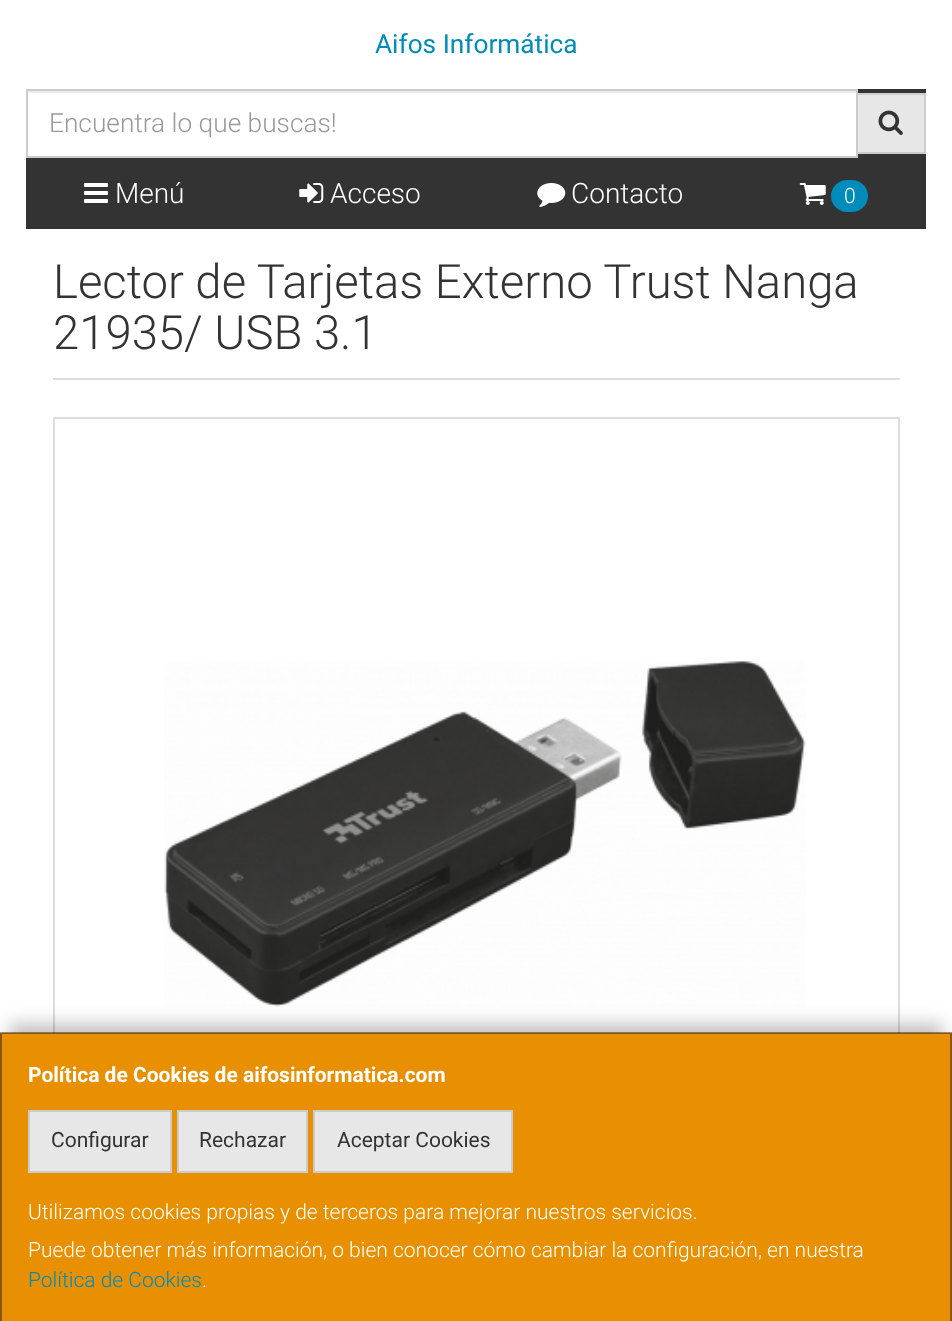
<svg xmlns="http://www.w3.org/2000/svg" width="952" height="1321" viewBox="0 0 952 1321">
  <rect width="100%" height="100%" fill="rgb(255,255,255)"/>
  <text x="375" y="53" font-family="Roboto" font-size="26.25" fill="rgb(0,140,186)">Aifos Informática</text>
  <rect x="26" y="89" width="900" height="140" fill="rgb(51,51,51)"/>
  <rect x="28" y="93" width="828" height="63" fill="rgb(255,255,255)"/>
  <rect x="28" y="91" width="828" height="2" fill="rgb(236,236,236)"/>
  <rect x="857" y="94" width="68" height="59" fill="rgb(231,231,231)" stroke="rgb(204,204,204)" stroke-width="2"/>
  <rect x="27" y="90" width="830" height="67" fill="none" stroke="rgb(204,204,204)" stroke-width="2"/>
  <text x="49" y="132" font-family="Roboto" font-size="26.25" font-weight="300" fill="rgb(153,153,153)">Encuentra lo que buscas!</text>
  <image x="878" y="110" width="25" height="25" href="pic1.png"/>
  <image x="84" y="183" width="24" height="20" href="pic2.png"/>
  <text x="115" y="203" font-family="Roboto" font-size="28" font-weight="300" fill="rgb(255,255,255)">Menú</text>
  <image x="299" y="183" width="25" height="20" href="pic3.png"/>
  <text x="330" y="203" font-family="Roboto" font-size="28" font-weight="300" fill="rgb(255,255,255)">Acceso</text>
  <image x="537" y="183" width="29" height="24" href="pic4.png"/>
  <text x="571" y="203" font-family="Roboto" font-size="28" font-weight="300" fill="rgb(255,255,255)">Contacto</text>
  <image x="799" y="183" width="27" height="22" href="pic5.png"/>
  <rect x="831" y="180" width="37" height="32" rx="16" fill="rgb(0,140,186)"/>
  <text x="844" y="203" font-family="Roboto" font-size="21" font-weight="300" fill="rgb(255,255,255)">0</text>
  <rect x="53" y="378" width="847" height="2" fill="rgb(221,221,221)"/>
  <g font-family="Roboto" font-size="47.25" font-weight="300" fill="rgb(51,51,51)">
    <text>
      <tspan x="53" y="298">Lector de Tarjetas Externo Trust Nanga</tspan>
      <tspan x="53" y="349">21935/ USB 3.1</tspan>
    </text>
  </g>
  <rect x="54" y="418" width="845" height="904" fill="none" stroke="rgb(221,221,221)" stroke-width="2"/>
  <image x="164" y="661" width="642" height="346" href="pic6.png"/>
  <rect x="9" y="1024" width="934" height="271" fill="rgba(0,0,0,0.25)" filter="blur(9px)"/>
  <rect x="0" y="1033" width="952" height="288" fill="rgb(233,144,2)"/>
  <path d="M0 1032H952L950 1034H2Z" fill="rgba(0,0,0,0.4)"/>
  <path d="M952 1032V1321H950V1034Z" fill="rgba(0,0,0,0.4)"/>
  <path d="M0 1321V1032L2 1034V1321Z" fill="rgba(0,0,0,0.4)"/>
  <text x="28" y="1082" font-family="Roboto" font-size="21" font-weight="bold" fill="rgb(255,255,255)">Política de Cookies de aifosinformatica.com</text>
  <rect x="29" y="1111" width="142" height="61" fill="rgb(231,231,231)" stroke="rgb(204,204,204)" stroke-width="2"/>
  <text x="51" y="1147" font-family="Roboto" font-size="21" fill="rgb(51,51,51)">Configurar</text>
  <rect x="178" y="1111" width="129" height="61" fill="rgb(231,231,231)" stroke="rgb(204,204,204)" stroke-width="2"/>
  <text x="199" y="1147" font-family="Roboto" font-size="21" fill="rgb(51,51,51)">Rechazar</text>
  <rect x="314" y="1111" width="198" height="61" fill="rgb(231,231,231)" stroke="rgb(204,204,204)" stroke-width="2"/>
  <text x="337" y="1147" font-family="Roboto" font-size="21" fill="rgb(51,51,51)">Aceptar Cookies</text>
  <g font-family="Roboto" font-size="21" font-weight="300" fill="rgb(255,255,255)">
    <text>
      <tspan x="28" y="1219">Utilizamos cookies propias y de terceros para mejorar nuestros servicios.</tspan>
      <tspan x="28" y="1257">Puede obtener más información, o bien conocer cómo cambiar la configuración, en nuestra</tspan>
    </text>
  </g>
  <text x="28" y="1287" font-family="Roboto" font-size="21" font-weight="300" fill="rgb(0,140,186)">Política de Cookies</text>
  <text x="202" y="1287" font-family="Roboto" font-size="21" font-weight="300" fill="rgb(255,255,255)">.</text>
</svg>
